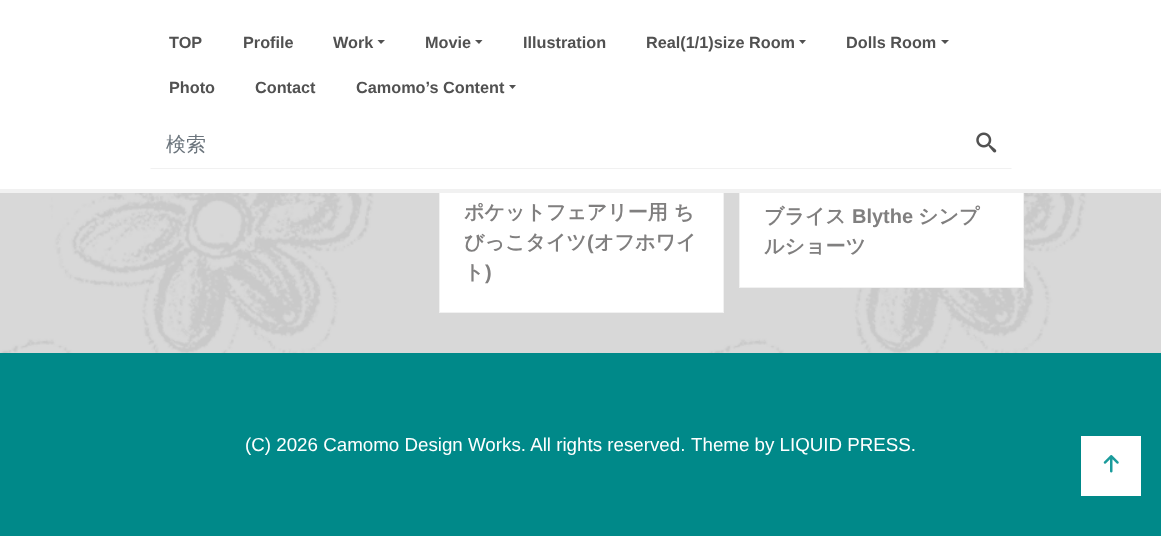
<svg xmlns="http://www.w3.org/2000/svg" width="1161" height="536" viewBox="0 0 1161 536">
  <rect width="100%" height="100%" fill="rgb(255,255,255)"/>
  <image x="0" y="193" width="1161" height="160" href="pic1.png"/>
  <rect x="440" y="193" width="283" height="119" fill="rgb(255,255,255)"/>
  <rect x="439.5" y="-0.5" width="284" height="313" fill="none" stroke="rgb(241,241,241)"/>
  <rect x="740" y="193" width="283" height="94" fill="rgb(255,255,255)"/>
  <rect x="739.5" y="3.5" width="284" height="284" fill="none" stroke="rgb(241,241,241)"/>
  <rect x="439" y="0" width="585" height="189" fill="rgb(255,255,255)"/>
  <rect x="0" y="189" width="1161" height="4" fill="rgb(241,241,241)"/>
  <g font-family="Liberation Sans" font-size="16.25" font-weight="bold" fill="rgb(81,81,81)">
    <text x="169" y="48">TOP</text>
    <text x="243" y="48">Profile</text>
    <text x="333" y="48">Work</text>
  </g>
  <path d="M377.5 40H385L381 44Z" fill="rgb(81,81,81)"/>
  <text x="425" y="48" font-family="Liberation Sans" font-size="16.25" font-weight="bold" fill="rgb(81,81,81)">Movie</text>
  <path d="M475 40H482.5L479 44Z" fill="rgb(81,81,81)"/>
  <g font-family="Liberation Sans" font-size="16.25" font-weight="bold" fill="rgb(81,81,81)">
    <text x="523" y="48">Illustration</text>
    <text x="646" y="48">Real(1/1)size Room</text>
  </g>
  <path d="M799 40H806L802.5 44Z" fill="rgb(81,81,81)"/>
  <text x="846" y="48" font-family="Liberation Sans" font-size="16.25" font-weight="bold" fill="rgb(81,81,81)">Dolls Room</text>
  <path d="M941 40H949L945 44Z" fill="rgb(81,81,81)"/>
  <g font-family="Liberation Sans" font-size="16.25" font-weight="bold" fill="rgb(81,81,81)">
    <text x="169" y="93">Photo</text>
    <text x="255" y="93">Contact</text>
    <text x="356" y="93">Camomo’s Content</text>
  </g>
  <path d="M509 85H516L512.5 89Z" fill="rgb(81,81,81)"/>
  <path d="M1012 169H150L151 168H1011Z" fill="rgb(241,241,241)"/>
  <text x="166" y="151" font-family="WenQuanYi Zen Hei" font-size="20" font-weight="500" fill="rgb(108,117,125)">検索</text>
  <image x="976" y="132" width="21" height="21" href="pic2.png"/>
  <g font-family="WenQuanYi Zen Hei" font-size="20" font-weight="bold" fill="rgb(128,127,127)">
    <text>
      <tspan x="464" y="219">ポケットフェアリー用 ち</tspan>
      <tspan x="464" y="249">びっこタイツ</tspan>
    </text>
  </g>
  <text x="587" y="249" font-family="Liberation Sans" font-size="20" font-weight="bold" fill="rgb(128,127,127)">(</text>
  <g font-family="WenQuanYi Zen Hei" font-size="20" font-weight="bold" fill="rgb(128,127,127)">
    <text x="594" y="249">オフホワイ</text>
    <text x="464" y="279">ト</text>
  </g>
  <text x="485" y="279" font-family="Liberation Sans" font-size="20" font-weight="bold" fill="rgb(128,127,127)">)</text>
  <text x="764" y="223" font-family="WenQuanYi Zen Hei" font-size="20" font-weight="bold" fill="rgb(128,127,127)">ブライス</text>
  <text x="852" y="223" font-family="Liberation Sans" font-size="20" font-weight="bold" fill="rgb(128,127,127)">Blythe</text>
  <g font-family="WenQuanYi Zen Hei" font-size="20" font-weight="bold" fill="rgb(128,127,127)">
    <text x="918" y="223">シンプ</text>
    <text x="764" y="253">ルショーツ</text>
  </g>
  <rect x="0" y="353" width="1161" height="183" fill="rgb(0,137,137)"/>
  <g font-family="Liberation Sans" font-size="18.75" fill="rgb(255,255,255)">
    <text x="245" y="451">(C) 2026 Camomo Design Works. All rights reserved.</text>
    <text x="691" y="451">Theme by LIQUID PRESS.</text>
  </g>
  <rect x="1081" y="436" width="60" height="60" fill="rgb(255,255,255)"/>
  <image x="1103" y="455" width="16" height="18" href="pic3.png"/>
</svg>
